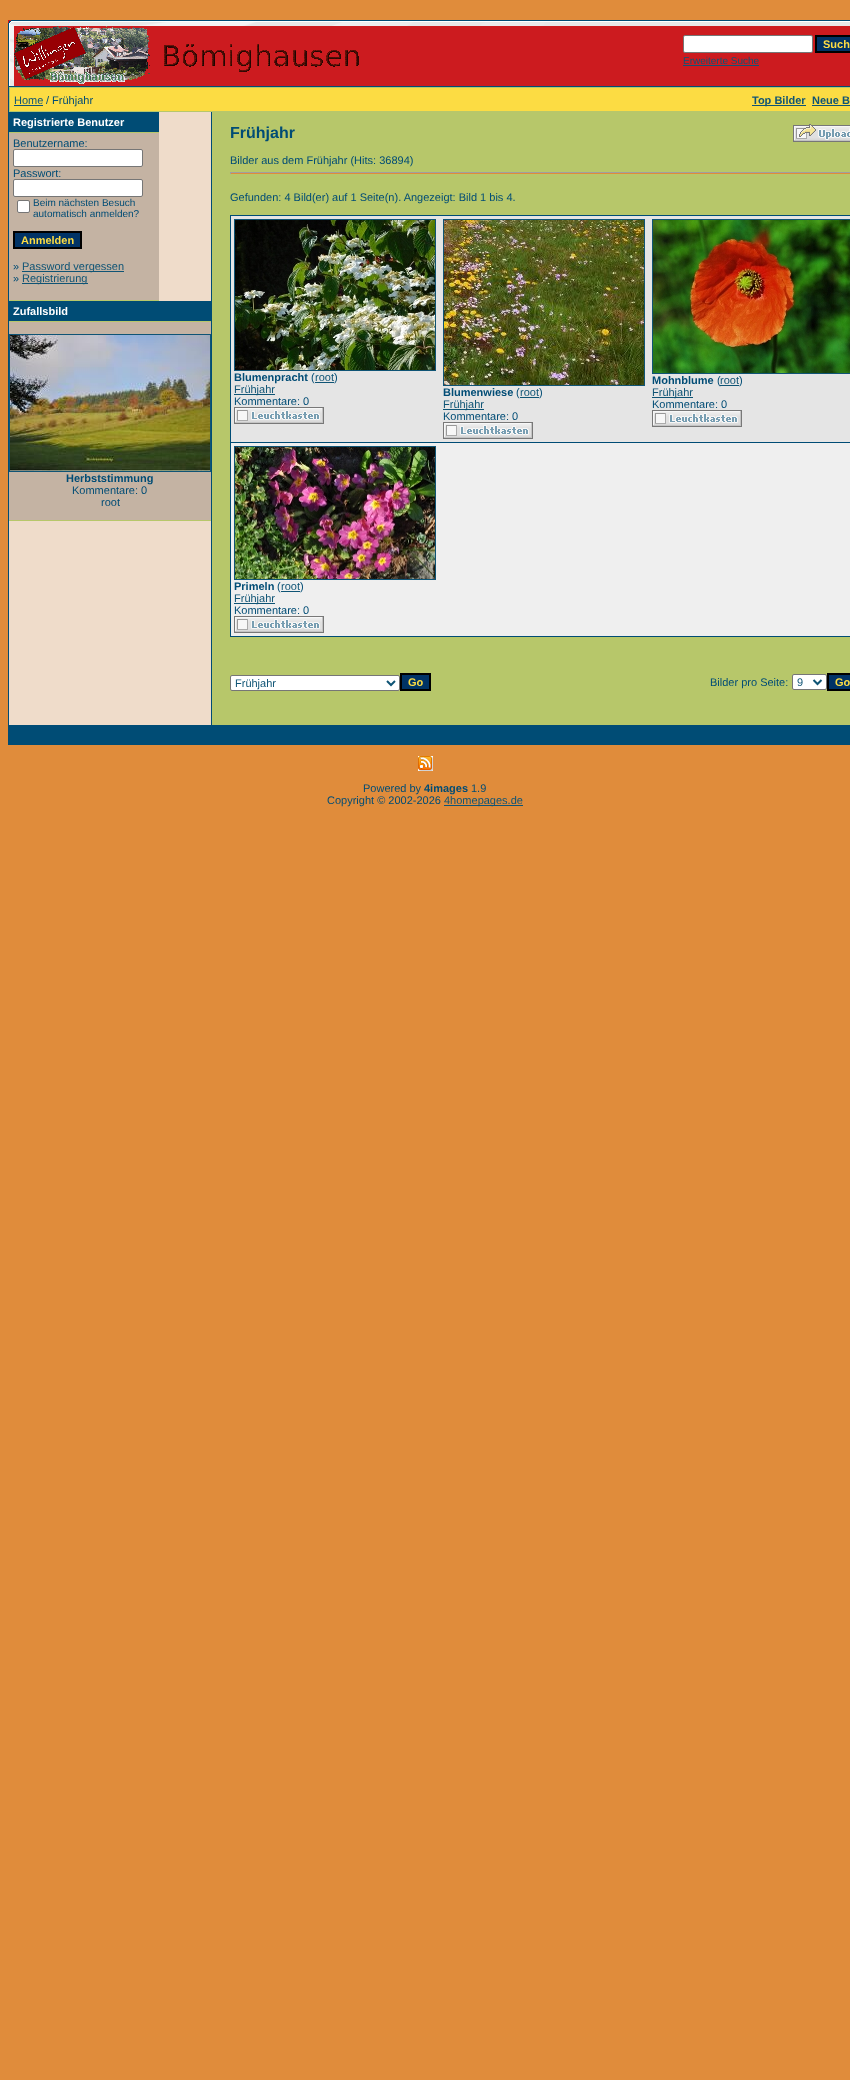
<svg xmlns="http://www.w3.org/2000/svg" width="850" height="2080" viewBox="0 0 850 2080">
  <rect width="100%" height="100%" fill="rgb(224,140,59)"/>
  <rect x="8" y="20" width="842" height="66" fill="rgb(204,27,31)"/>
  <image x="8" y="20" width="6" height="6" href="pic1.png"/>
  <image x="14" y="20" width="836" height="6" href="pic2.png"/>
  <image x="8" y="26" width="6" height="60" href="pic3.png"/>
  <image x="14" y="26" width="345" height="58" href="pic4.png"/>
  <rect x="683.5" y="35.5" width="129" height="17" rx="1.5" fill="rgb(255,255,255)" stroke="rgb(118,118,118)"/>
  <rect x="816" y="36" width="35" height="16" fill="rgb(0,51,102)" stroke="rgb(0,0,0)" stroke-width="2"/>
  <text x="823" y="48" font-family="Liberation Sans" font-size="11" font-weight="bold" fill="rgb(252,220,67)">Such</text>
  <text x="683" y="64" font-family="Liberation Sans" font-size="10" fill="rgb(15,84,117)">Erweiterte Suche</text>
  <rect x="683" y="65" width="76" height="1" fill="rgb(15,84,117)"/>
  <rect x="8" y="86" width="842" height="659" fill="rgb(0,76,117)"/>
  <rect x="9" y="87" width="841" height="638" fill="rgb(183,199,106)"/>
  <rect x="10" y="88" width="840" height="23" fill="rgb(252,220,67)"/>
  <text x="14" y="104" font-family="Liberation Sans" font-size="11" fill="rgb(15,84,117)">Home</text>
  <rect x="14" y="105" width="29" height="1" fill="rgb(15,84,117)"/>
  <text x="46" y="104" font-family="Liberation Sans" font-size="11" fill="rgb(0,76,117)">/ Frühjahr</text>
  <rect x="752" y="105" width="54" height="1" fill="rgb(15,84,117)"/>
  <g font-family="Liberation Sans" font-size="11" font-weight="bold" fill="rgb(15,84,117)">
    <text x="752" y="104">Top Bilder</text>
    <text x="812" y="104">Neue B</text>
  </g>
  <rect x="812" y="105" width="38" height="1" fill="rgb(15,84,117)"/>
  <rect x="9" y="112" width="202" height="613" fill="rgb(239,220,202)"/>
  <rect x="9" y="112" width="150" height="20" fill="rgb(0,76,117)"/>
  <text x="13" y="126" font-family="Liberation Sans" font-size="11" font-weight="bold" fill="rgb(255,255,255)">Registrierte Benutzer</text>
  <rect x="9" y="132" width="150" height="1" fill="rgb(183,199,106)"/>
  <rect x="9" y="133" width="150" height="167" fill="rgb(196,179,163)"/>
  <text x="13" y="147" font-family="Liberation Sans" font-size="11" fill="rgb(0,76,117)">Benutzername:</text>
  <rect x="13.5" y="149.5" width="129" height="17" rx="1.5" fill="rgb(255,255,255)" stroke="rgb(118,118,118)"/>
  <text x="13" y="177" font-family="Liberation Sans" font-size="11" fill="rgb(0,76,117)">Passwort:</text>
  <rect x="13.5" y="179.5" width="129" height="17" rx="1.5" fill="rgb(255,255,255)" stroke="rgb(118,118,118)"/>
  <rect x="17.5" y="200.5" width="12" height="12" rx="1.5" fill="rgb(255,255,255)" stroke="rgb(118,118,118)"/>
  <g font-family="Liberation Sans" font-size="10" fill="rgb(0,76,117)">
    <text>
      <tspan x="33" y="206">Beim nächsten Besuch</tspan>
      <tspan x="33" y="217">automatisch anmelden?</tspan>
    </text>
  </g>
  <rect x="14" y="232" width="67" height="16" fill="rgb(0,51,102)" stroke="rgb(0,0,0)" stroke-width="2"/>
  <text x="21" y="244" font-family="Liberation Sans" font-size="11" font-weight="bold" fill="rgb(252,220,67)">Anmelden</text>
  <text x="13" y="270" font-family="Liberation Sans" font-size="11" fill="rgb(0,76,117)">»</text>
  <rect x="22" y="271" width="102" height="1" fill="rgb(15,84,117)"/>
  <text x="22" y="270" font-family="Liberation Sans" font-size="11" fill="rgb(15,84,117)">Password vergessen</text>
  <text x="13" y="282" font-family="Liberation Sans" font-size="11" fill="rgb(0,76,117)">»</text>
  <rect x="22" y="283" width="66" height="1" fill="rgb(15,84,117)"/>
  <text x="22" y="282" font-family="Liberation Sans" font-size="11" fill="rgb(15,84,117)">Registrierung</text>
  <rect x="9" y="300" width="150" height="1" fill="rgb(183,199,106)"/>
  <rect x="9" y="301" width="202" height="20" fill="rgb(0,76,117)"/>
  <text x="13" y="315" font-family="Liberation Sans" font-size="11" font-weight="bold" fill="rgb(255,255,255)">Zufallsbild</text>
  <rect x="9" y="321" width="202" height="1" fill="rgb(183,199,106)"/>
  <rect x="9" y="322" width="202" height="198" fill="rgb(196,179,163)"/>
  <rect x="9.5" y="334.5" width="201" height="137" fill="none" stroke="rgb(15,84,117)"/>
  <image x="10" y="335" width="200" height="136" href="pic5.png"/>
  <text x="66" y="482" font-family="Liberation Sans" font-size="11" font-weight="bold" fill="rgb(0,76,117)">Herbststimmung</text>
  <g font-family="Liberation Sans" font-size="11" fill="rgb(0,76,117)">
    <text x="72" y="494">Kommentare: 0</text>
    <text x="101" y="506">root</text>
  </g>
  <rect x="9" y="520" width="202" height="1" fill="rgb(183,199,106)"/>
  <rect x="211" y="112" width="1" height="613" fill="rgb(0,76,117)"/>
  <text x="230" y="138" font-family="Liberation Sans" font-size="16" font-weight="bold" fill="rgb(0,76,117)">Frühjahr</text>
  <image x="793" y="124" width="57" height="18" href="pic6.png"/>
  <text x="230" y="164" font-family="Liberation Sans" font-size="11" fill="rgb(0,76,117)">Bilder aus dem Frühjahr (Hits: 36894)</text>
  <rect x="230" y="173" width="620" height="1" fill="rgb(224,140,59)"/>
  <rect x="230" y="172" width="620" height="1" fill="rgb(159,159,159)"/>
  <rect x="230" y="172" width="1" height="2" fill="rgb(159,159,159)"/>
  <text x="230" y="201" font-family="Liberation Sans" font-size="11" fill="rgb(0,76,117)">Gefunden: 4 Bild(er) auf 1 Seite(n). Angezeigt: Bild 1 bis 4.</text>
  <rect x="230" y="215" width="620" height="422" fill="rgb(0,76,117)"/>
  <rect x="231" y="216" width="619" height="226" fill="rgb(229,229,229)"/>
  <rect x="234.5" y="219.5" width="201" height="151" fill="none" stroke="rgb(15,84,117)"/>
  <image x="235" y="220" width="200" height="150" href="pic7.png"/>
  <text x="234" y="381" font-family="Liberation Sans" font-size="11" font-weight="bold" fill="rgb(0,76,117)">Blumenpracht</text>
  <text x="311" y="381" font-family="Liberation Sans" font-size="11" fill="rgb(0,76,117)">(</text>
  <text x="315" y="381" font-family="Liberation Sans" font-size="11" fill="rgb(15,84,117)">root</text>
  <rect x="315" y="382" width="19" height="1" fill="rgb(15,84,117)"/>
  <text x="334" y="381" font-family="Liberation Sans" font-size="11" fill="rgb(0,76,117)">)</text>
  <rect x="234" y="394" width="41" height="1" fill="rgb(15,84,117)"/>
  <text x="234" y="393" font-family="Liberation Sans" font-size="11" fill="rgb(15,84,117)">Frühjahr</text>
  <text x="234" y="405" font-family="Liberation Sans" font-size="11" fill="rgb(0,76,117)">Kommentare: 0</text>
  <image x="234" y="407" width="90" height="17" href="pic8.png"/>
  <rect x="443.5" y="219.5" width="201" height="166" fill="none" stroke="rgb(15,84,117)"/>
  <image x="444" y="220" width="200" height="165" href="pic9.png"/>
  <text x="443" y="396" font-family="Liberation Sans" font-size="11" font-weight="bold" fill="rgb(0,76,117)">Blumenwiese</text>
  <text x="516" y="396" font-family="Liberation Sans" font-size="11" fill="rgb(0,76,117)">(</text>
  <text x="520" y="396" font-family="Liberation Sans" font-size="11" fill="rgb(15,84,117)">root</text>
  <rect x="520" y="397" width="19" height="1" fill="rgb(15,84,117)"/>
  <text x="539" y="396" font-family="Liberation Sans" font-size="11" fill="rgb(0,76,117)">)</text>
  <rect x="443" y="409" width="41" height="1" fill="rgb(15,84,117)"/>
  <text x="443" y="408" font-family="Liberation Sans" font-size="11" fill="rgb(15,84,117)">Frühjahr</text>
  <text x="443" y="420" font-family="Liberation Sans" font-size="11" fill="rgb(0,76,117)">Kommentare: 0</text>
  <image x="443" y="422" width="90" height="17" href="pic8.png"/>
  <rect x="652.5" y="219.5" width="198" height="154" fill="none" stroke="rgb(15,84,117)"/>
  <image x="653" y="220" width="197" height="153" href="pic10.png"/>
  <text x="652" y="384" font-family="Liberation Sans" font-size="11" font-weight="bold" fill="rgb(0,76,117)">Mohnblume</text>
  <text x="717" y="384" font-family="Liberation Sans" font-size="11" fill="rgb(0,76,117)">(</text>
  <text x="720" y="384" font-family="Liberation Sans" font-size="11" fill="rgb(15,84,117)">root</text>
  <rect x="720" y="385" width="19" height="1" fill="rgb(15,84,117)"/>
  <text x="739" y="384" font-family="Liberation Sans" font-size="11" fill="rgb(0,76,117)">)</text>
  <rect x="652" y="397" width="41" height="1" fill="rgb(15,84,117)"/>
  <text x="652" y="396" font-family="Liberation Sans" font-size="11" fill="rgb(15,84,117)">Frühjahr</text>
  <text x="652" y="408" font-family="Liberation Sans" font-size="11" fill="rgb(0,76,117)">Kommentare: 0</text>
  <image x="652" y="410" width="90" height="17" href="pic8.png"/>
  <rect x="231" y="443" width="619" height="193" fill="rgb(239,239,239)"/>
  <rect x="234.5" y="446.5" width="201" height="133" fill="none" stroke="rgb(15,84,117)"/>
  <image x="235" y="447" width="200" height="132" href="pic11.png"/>
  <text x="234" y="590" font-family="Liberation Sans" font-size="11" font-weight="bold" fill="rgb(0,76,117)">Primeln</text>
  <text x="277" y="590" font-family="Liberation Sans" font-size="11" fill="rgb(0,76,117)">(</text>
  <text x="281" y="590" font-family="Liberation Sans" font-size="11" fill="rgb(15,84,117)">root</text>
  <rect x="281" y="591" width="19" height="1" fill="rgb(15,84,117)"/>
  <text x="300" y="590" font-family="Liberation Sans" font-size="11" fill="rgb(0,76,117)">)</text>
  <rect x="234" y="603" width="41" height="1" fill="rgb(15,84,117)"/>
  <text x="234" y="602" font-family="Liberation Sans" font-size="11" fill="rgb(15,84,117)">Frühjahr</text>
  <text x="234" y="614" font-family="Liberation Sans" font-size="11" fill="rgb(0,76,117)">Kommentare: 0</text>
  <image x="234" y="616" width="90" height="17" href="pic8.png"/>
  <rect x="230.5" y="675.5" width="169" height="15" rx="1.5" fill="rgb(255,255,255)" stroke="rgb(118,118,118)"/>
  <path d="M387 681L391 685L395 681" fill="none" stroke="rgb(15,84,117)" stroke-width="2"/>
  <text x="235" y="687" font-family="Liberation Sans" font-size="11" fill="rgb(15,84,117)">Frühjahr</text>
  <rect x="401" y="674" width="29" height="16" fill="rgb(0,51,102)" stroke="rgb(0,0,0)" stroke-width="2"/>
  <text x="408" y="686" font-family="Liberation Sans" font-size="11" font-weight="bold" fill="rgb(252,220,67)">Go</text>
  <text x="710" y="686" font-family="Liberation Sans" font-size="11" fill="rgb(0,76,117)">Bilder pro Seite:</text>
  <rect x="792.5" y="674.5" width="34" height="15" rx="1.5" fill="rgb(255,255,255)" stroke="rgb(118,118,118)"/>
  <path d="M813.5 680L817.5 684L821.5 680" fill="none" stroke="rgb(15,84,117)" stroke-width="2"/>
  <text x="797" y="686" font-family="Liberation Sans" font-size="11" fill="rgb(15,84,117)">9</text>
  <rect x="828" y="674" width="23" height="16" fill="rgb(0,51,102)" stroke="rgb(0,0,0)" stroke-width="2"/>
  <text x="835" y="686" font-family="Liberation Sans" font-size="11" font-weight="bold" fill="rgb(252,220,67)">Go</text>
  <image x="418" y="756" width="15" height="15" href="pic12.png"/>
  <text x="363" y="792" font-family="Liberation Sans" font-size="11" fill="rgb(0,76,117)">Powered by</text>
  <text x="424" y="792" font-family="Liberation Sans" font-size="11" font-weight="bold" fill="rgb(0,76,117)">4images</text>
  <g font-family="Liberation Sans" font-size="11" fill="rgb(0,76,117)">
    <text x="471" y="792">1.9</text>
    <text x="327" y="804">Copyright © 2002-2026</text>
  </g>
  <rect x="444" y="805" width="79" height="1" fill="rgb(15,84,117)"/>
  <text x="444" y="804" font-family="Liberation Sans" font-size="11" fill="rgb(15,84,117)">4homepages.de</text>
</svg>
